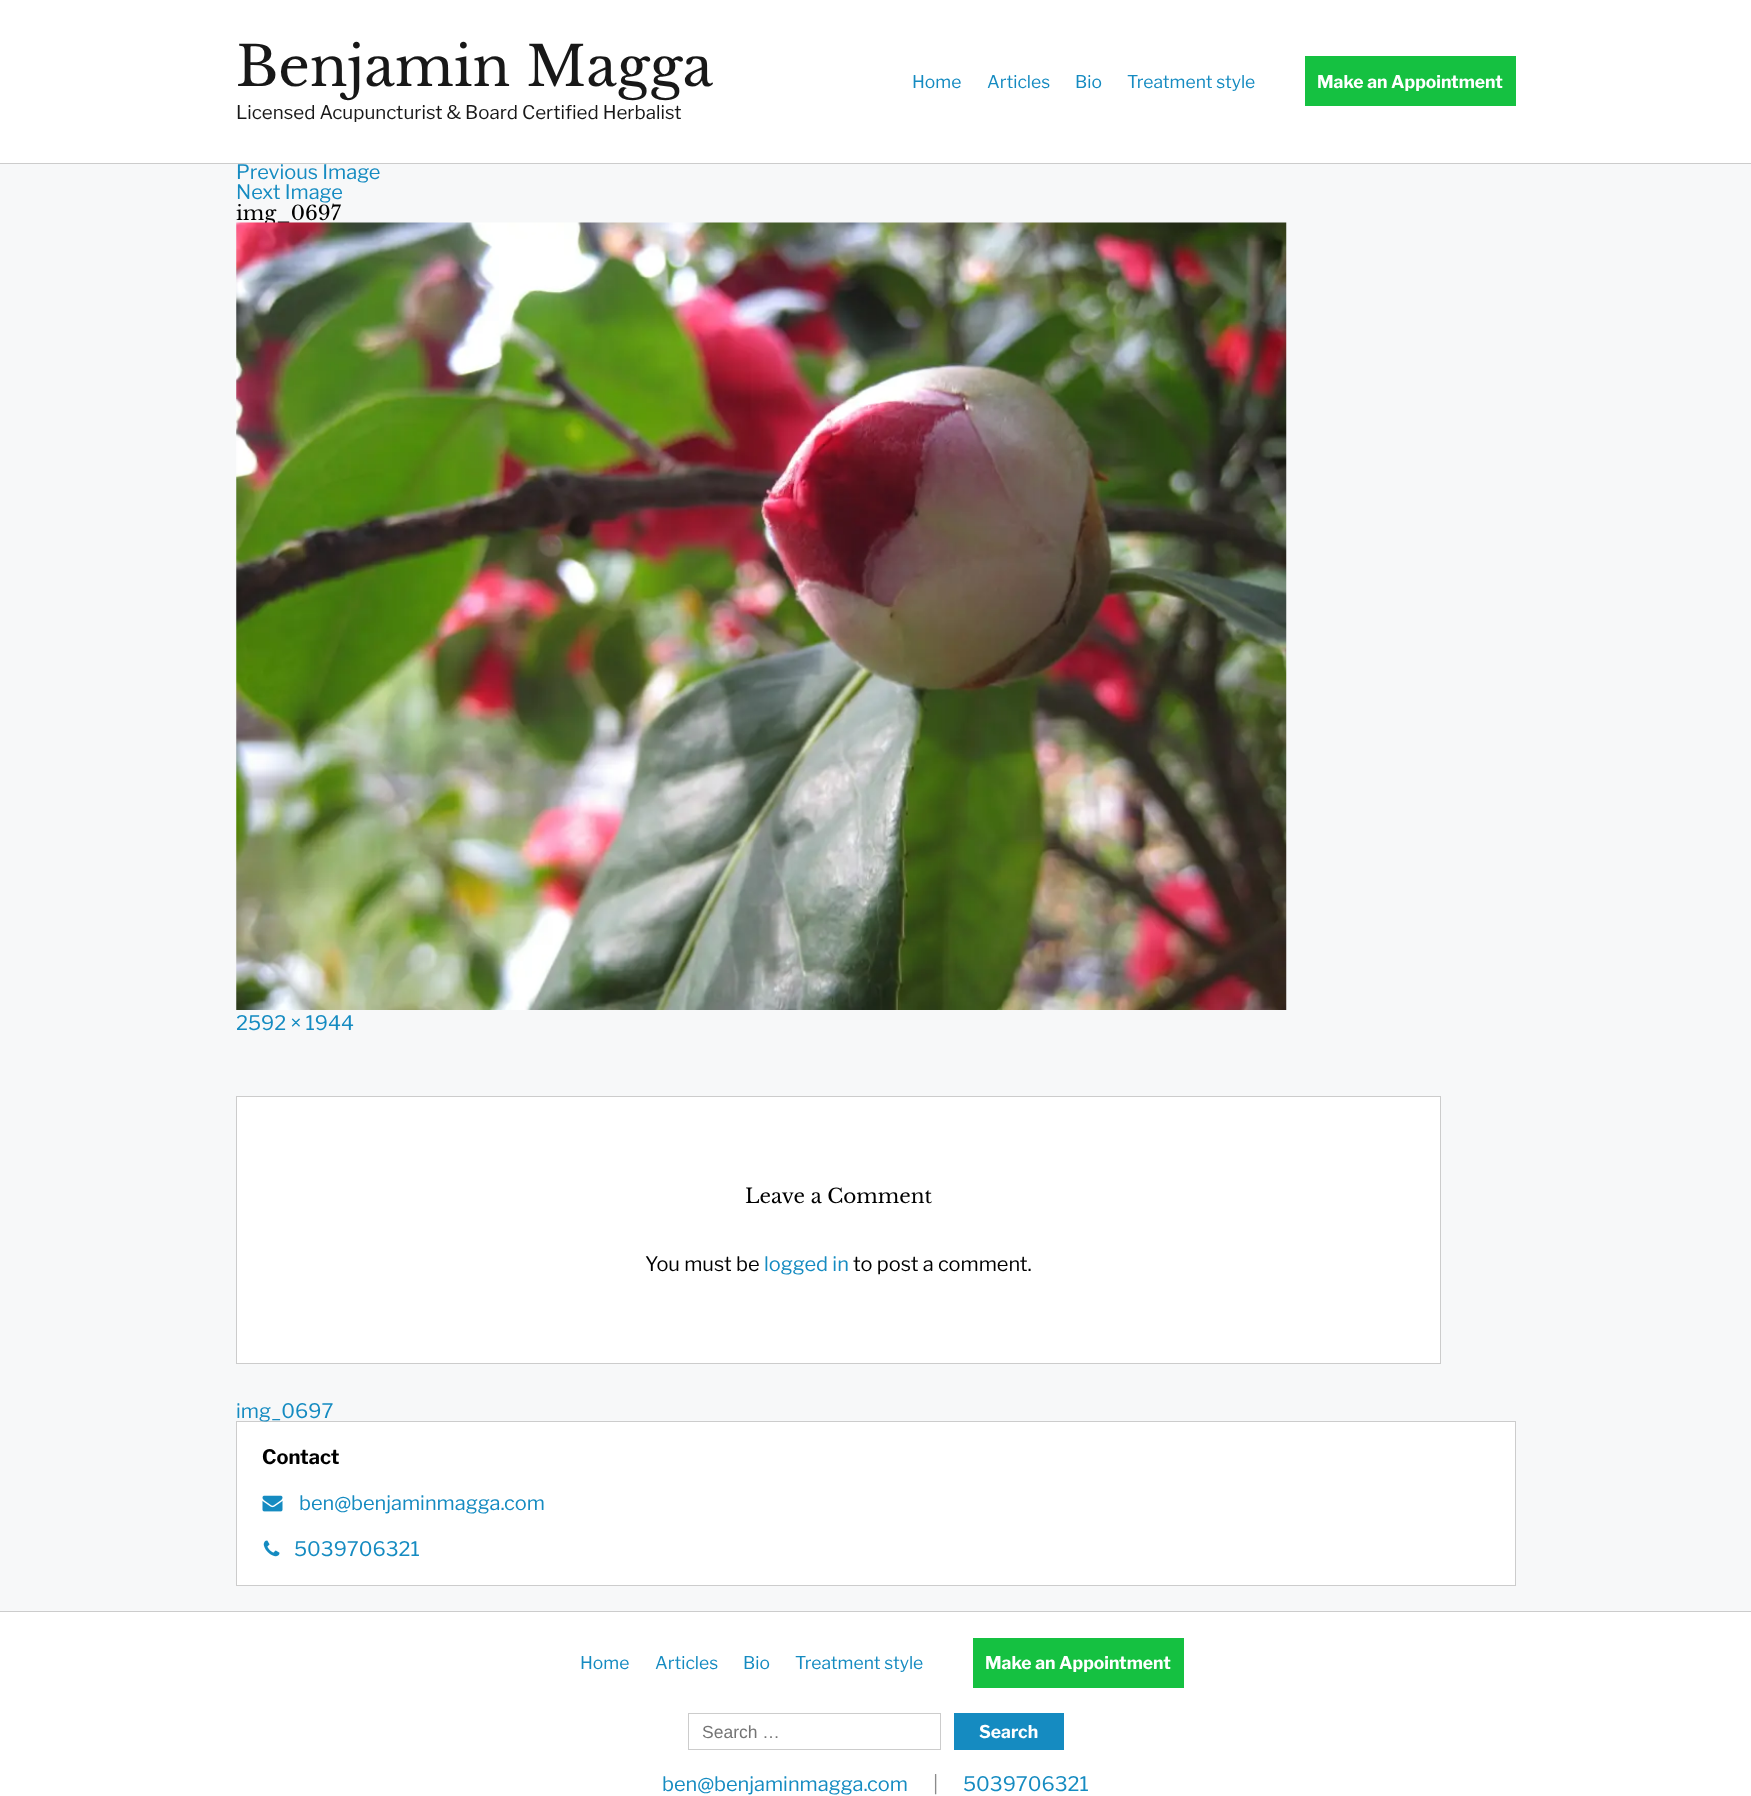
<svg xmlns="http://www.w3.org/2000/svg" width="1751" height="1796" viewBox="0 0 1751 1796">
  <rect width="100%" height="100%" fill="rgb(247,248,249)"/>
  <rect x="0" y="163" width="1751" height="1" fill="rgb(204,204,204)"/>
  <rect x="0" y="0" width="1751" height="163" fill="rgb(255,255,255)"/>
  <text x="236" y="86" font-family="Libre Baskerville" font-size="55" fill="rgb(24,24,24)">Benjamin Magga</text>
  <text x="236" y="119" font-family="Libre Franklin" font-size="18.75" fill="rgb(24,24,24)">Licensed Acupuncturist &amp; Board Certified Herbalist</text>
  <g font-family="Libre Franklin" font-size="17.5" fill="rgb(21,139,193)">
    <text x="912" y="88">Home</text>
    <text x="987" y="88">Articles</text>
    <text x="1075" y="88">Bio</text>
    <text x="1127" y="88">Treatment style</text>
  </g>
  <rect x="1305" y="56" width="211" height="50" fill="rgb(21,193,65)"/>
  <text x="1317" y="88" font-family="Libre Franklin" font-size="17.5" font-weight="bold" fill="rgb(255,255,255)">Make an Appointment</text>
  <g font-family="Libre Franklin" font-size="20" fill="rgb(21,139,193)">
    <text>
      <tspan x="236" y="179">Previous Image</tspan>
      <tspan x="236" y="199">Next Image</tspan>
    </text>
  </g>
  <text x="236" y="220" font-family="Libre Baskerville" font-size="20" fill="rgb(0,0,0)">img_0697</text>
  <image x="236" y="222" width="1051" height="788" href="pic1.png"/>
  <text x="236" y="1030" font-family="Libre Franklin" font-size="20" fill="rgb(21,139,193)">2592 × 1944</text>
  <rect x="236.5" y="1096.5" width="1204" height="267" fill="rgb(255,255,255)" stroke="rgb(204,204,204)"/>
  <text x="745" y="1203" font-family="Libre Baskerville" font-size="20" fill="rgb(0,0,0)">Leave a Comment</text>
  <text x="645" y="1271" font-family="Libre Franklin" font-size="20" fill="rgb(0,0,0)">You must be</text>
  <text x="764" y="1271" font-family="Libre Franklin" font-size="20" fill="rgb(21,139,193)">logged in</text>
  <text x="853" y="1271" font-family="Libre Franklin" font-size="20" fill="rgb(0,0,0)">to post a comment.</text>
  <rect x="236.5" y="1421.5" width="1279" height="164" fill="rgb(255,255,255)" stroke="rgb(204,204,204)"/>
  <text x="236" y="1418" font-family="Libre Franklin" font-size="20" fill="rgb(21,139,193)">img_0697</text>
  <text x="262" y="1464" font-family="Libre Franklin" font-size="20" font-weight="bold" fill="rgb(0,0,0)">Contact</text>
  <image x="262" y="1495" width="21" height="17" href="pic2.png"/>
  <text x="299" y="1510" font-family="Libre Franklin" font-size="20" fill="rgb(21,139,193)">ben@benjaminmagga.com</text>
  <image x="263" y="1540" width="17" height="17" href="pic3.png"/>
  <text x="294" y="1556" font-family="Libre Franklin" font-size="20" fill="rgb(21,139,193)">5039706321</text>
  <rect x="0" y="1612" width="1751" height="184" fill="rgb(255,255,255)"/>
  <rect x="0" y="1611" width="1751" height="1" fill="rgb(204,204,204)"/>
  <g font-family="Libre Franklin" font-size="17.5" fill="rgb(21,139,193)">
    <text x="580" y="1669">Home</text>
    <text x="655" y="1669">Articles</text>
    <text x="743" y="1669">Bio</text>
    <text x="795" y="1669">Treatment style</text>
  </g>
  <rect x="973" y="1638" width="211" height="50" fill="rgb(21,193,65)"/>
  <text x="985" y="1669" font-family="Libre Franklin" font-size="17.5" font-weight="bold" fill="rgb(255,255,255)">Make an Appointment</text>
  <rect x="688.5" y="1713.5" width="252" height="36" fill="none" stroke="rgb(204,204,204)"/>
  <text x="702" y="1738" font-family="Liberation Sans" font-size="17.5" fill="rgb(117,117,117)">Search …</text>
  <rect x="954" y="1713" width="110" height="37" fill="rgb(21,139,193)"/>
  <text x="979" y="1738" font-family="Libre Franklin" font-size="17.5" font-weight="bold" fill="rgb(255,255,255)">Search</text>
  <text x="662" y="1791" font-family="Libre Franklin" font-size="20" fill="rgb(21,139,193)">ben@benjaminmagga.com</text>
  <text x="933" y="1791" font-family="Libre Franklin" font-size="20" fill="rgb(139,139,139)">|</text>
  <text x="963" y="1791" font-family="Libre Franklin" font-size="20" fill="rgb(21,139,193)">5039706321</text>
</svg>
